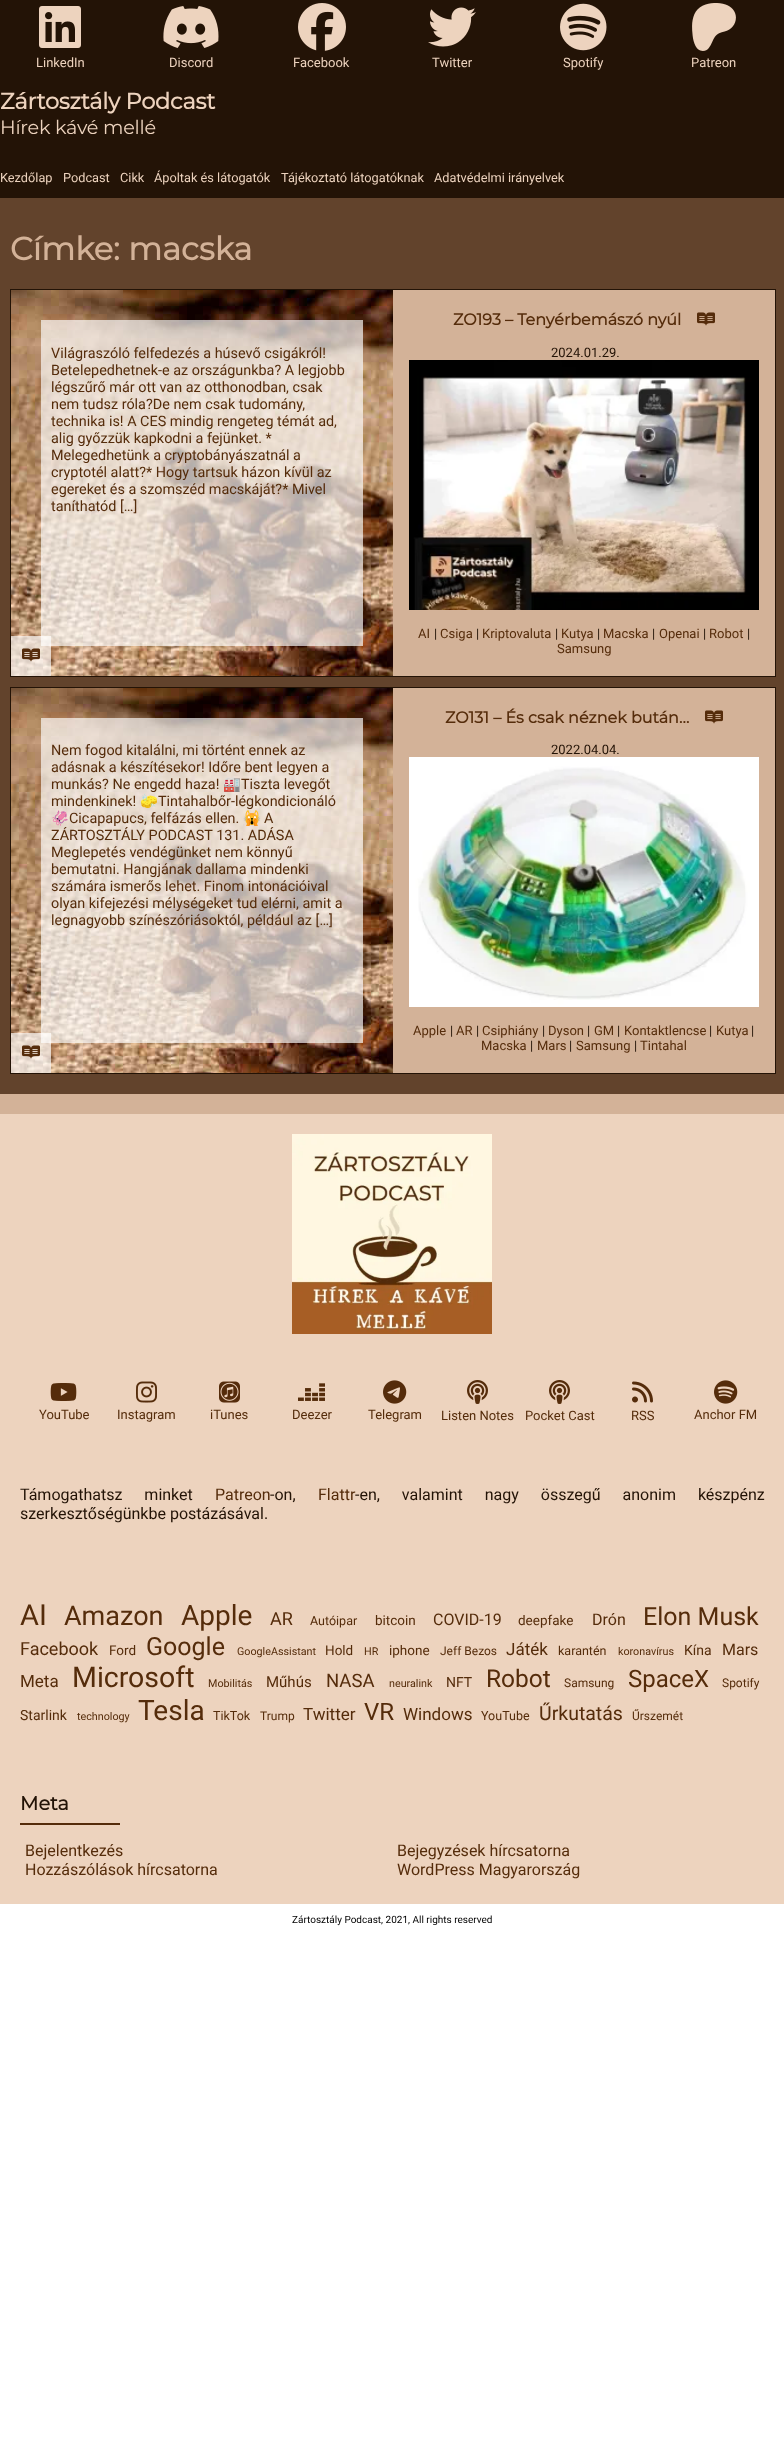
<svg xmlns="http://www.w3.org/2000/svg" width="784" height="2437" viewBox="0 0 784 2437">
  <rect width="100%" height="100%" fill="rgb(255,255,255)"/>
  <rect x="0" y="0" width="784" height="198" fill="rgb(35,19,6)"/>
  <image x="39" y="6" width="42" height="42" href="pic1.png"/>
  <text x="36" y="67" font-family="Roboto" font-size="13" fill="rgb(237,211,190)">LinkedIn</text>
  <image x="163" y="6" width="56" height="42" href="pic2.png"/>
  <text x="169" y="67" font-family="Roboto" font-size="13" fill="rgb(237,211,190)">Discord</text>
  <image x="298" y="3" width="48" height="48" href="pic3.png"/>
  <text x="293" y="67" font-family="Roboto" font-size="13" fill="rgb(237,211,190)">Facebook</text>
  <image x="428" y="7" width="48" height="40" href="pic4.png"/>
  <text x="432" y="67" font-family="Roboto" font-size="13" fill="rgb(237,211,190)">Twitter</text>
  <image x="560" y="3" width="47" height="48" href="pic5.png"/>
  <text x="563" y="67" font-family="Roboto" font-size="13" fill="rgb(237,211,190)">Spotify</text>
  <image x="692" y="3" width="44" height="48" href="pic6.png"/>
  <text x="691" y="67" font-family="Roboto" font-size="13" fill="rgb(237,211,190)">Patreon</text>
  <text x="0" y="109" font-family="Montserrat" font-size="22.5" font-weight="bold" letter-spacing="-0.25" fill="rgb(237,211,190)">Zártosztály Podcast</text>
  <text x="0" y="134" font-family="Montserrat" font-size="19.25" font-weight="100" letter-spacing="-0.25" fill="rgb(237,211,190)">Hírek kávé mellé</text>
  <g font-family="Roboto" font-size="12.75" fill="rgb(237,211,190)">
    <text x="0" y="182">Kezdőlap</text>
    <text x="63" y="182">Podcast</text>
    <text x="120" y="182">Cikk</text>
    <text x="154" y="182">Ápoltak és látogatók</text>
    <text x="281" y="182">Tájékoztató látogatóknak</text>
    <text x="434" y="182">Adatvédelmi irányelvek</text>
  </g>
  <rect x="0" y="1094" width="784" height="20" fill="rgb(211,178,152)"/>
  <rect x="0" y="198" width="784" height="896" fill="rgb(98,67,44)"/>
  <text x="10" y="260" font-family="Montserrat" font-size="32" font-weight="bold" fill="rgb(211,178,152)">Címke: macska</text>
  <rect x="10.5" y="289.5" width="765" height="387" fill="none" stroke="rgb(35,19,6)"/>
  <image x="11" y="290" width="382" height="386" href="pic7.png"/>
  <rect x="41" y="320" width="322" height="326" fill="rgba(255,255,255,0.67)"/>
  <g font-family="Roboto" font-size="14.4" fill="rgb(85,44,11)">
    <text>
      <tspan x="51" y="358">Világraszóló felfedezés a húsevő csigákról!</tspan>
      <tspan x="51" y="375">Betelepedhetnek-e az országunkba? A legjobb</tspan>
      <tspan x="51" y="392">légszűrő már ott van az otthonodban, csak</tspan>
      <tspan x="51" y="409">nem tudsz róla?De nem csak tudomány,</tspan>
      <tspan x="51" y="426">technika is! A CES mindig rengeteg témát ad,</tspan>
      <tspan x="51" y="443">alig győzzük kapkodni a fejünket. *</tspan>
      <tspan x="51" y="460">Melegedhetünk a cryptobányászatnál a</tspan>
      <tspan x="51" y="477">cryptotél alatt?* Hogy tartsuk házon kívül az</tspan>
      <tspan x="51" y="494">egereket és a szomszéd macskáját?* Mivel</tspan>
      <tspan x="51" y="511">taníthatód […]</tspan>
    </text>
  </g>
  <rect x="11" y="636" width="40" height="40" fill="rgba(255,255,255,0.67)"/>
  <image x="22" y="648" width="18" height="14" href="pic8.png"/>
  <rect x="393" y="290" width="382" height="386" fill="rgb(211,178,152)"/>
  <text x="453" y="325" font-family="Montserrat" font-size="16" font-weight="bold" fill="rgb(85,44,11)">ZO193 – Tenyérbemászó nyúl</text>
  <image x="697" y="312" width="18" height="14" href="pic9.png"/>
  <text x="551" y="357" font-family="Roboto" font-size="13" fill="rgb(35,19,6)">2024.01.29.</text>
  <image x="409" y="360" width="350" height="250" href="pic10.png"/>
  <text x="418" y="638" font-family="Roboto" font-size="13" fill="rgb(85,44,11)">AI</text>
  <text x="434" y="638" font-family="Roboto" font-size="13" fill="rgb(35,19,6)">|</text>
  <text x="440" y="638" font-family="Roboto" font-size="13" fill="rgb(85,44,11)">Csiga</text>
  <text x="476" y="638" font-family="Roboto" font-size="13" fill="rgb(35,19,6)">|</text>
  <text x="482" y="638" font-family="Roboto" font-size="13" fill="rgb(85,44,11)">Kriptovaluta</text>
  <text x="555" y="638" font-family="Roboto" font-size="13" fill="rgb(35,19,6)">|</text>
  <text x="561" y="638" font-family="Roboto" font-size="13" fill="rgb(85,44,11)">Kutya</text>
  <text x="597" y="638" font-family="Roboto" font-size="13" fill="rgb(35,19,6)">|</text>
  <text x="603" y="638" font-family="Roboto" font-size="13" fill="rgb(85,44,11)">Macska</text>
  <text x="652" y="638" font-family="Roboto" font-size="13" fill="rgb(35,19,6)">|</text>
  <text x="659" y="638" font-family="Roboto" font-size="13" fill="rgb(85,44,11)">Openai</text>
  <text x="703" y="638" font-family="Roboto" font-size="13" fill="rgb(35,19,6)">|</text>
  <text x="709" y="638" font-family="Roboto" font-size="13" fill="rgb(85,44,11)">Robot</text>
  <text x="747" y="638" font-family="Roboto" font-size="13" fill="rgb(35,19,6)">|</text>
  <text x="557" y="653" font-family="Roboto" font-size="13" fill="rgb(85,44,11)">Samsung</text>
  <rect x="10.5" y="687.5" width="765" height="386" fill="none" stroke="rgb(35,19,6)"/>
  <image x="11" y="688" width="382" height="385" href="pic11.png"/>
  <rect x="41" y="718" width="322" height="325" fill="rgba(255,255,255,0.67)"/>
  <g font-family="Roboto" font-size="14.4" fill="rgb(85,44,11)">
    <text>
      <tspan x="51" y="755">Nem fogod kitalálni, mi történt ennek az</tspan>
      <tspan x="51" y="772">adásnak a készítésekor! Időre bent legyen a</tspan>
      <tspan x="51" y="789">munkás? Ne engedd haza!</tspan>
    </text>
  </g>
  <text x="223" y="789" font-family="Noto Color Emoji" font-size="14.4" fill="rgb(85,44,11)">🏭</text>
  <g font-family="Roboto" font-size="14.4" fill="rgb(85,44,11)">
    <text x="241" y="789">Tiszta levegőt</text>
    <text x="51" y="806">mindenkinek!</text>
  </g>
  <text x="140" y="806" font-family="Noto Color Emoji" font-size="14.4" fill="rgb(85,44,11)">🧽</text>
  <text x="158" y="806" font-family="Roboto" font-size="14.4" fill="rgb(85,44,11)">Tintahalbőr-légkondicionáló</text>
  <text x="51" y="823" font-family="Noto Color Emoji" font-size="14.4" fill="rgb(85,44,11)">🦑</text>
  <text x="69" y="823" font-family="Roboto" font-size="14.4" fill="rgb(85,44,11)">Cicapapucs, felfázás ellen.</text>
  <text x="243" y="823" font-family="Noto Color Emoji" font-size="14.4" fill="rgb(85,44,11)">🙀</text>
  <g font-family="Roboto" font-size="14.4" fill="rgb(85,44,11)">
    <text x="264" y="823">A</text>
    <text>
      <tspan x="51" y="840">ZÁRTOSZTÁLY PODCAST 131. ADÁSA</tspan>
      <tspan x="51" y="857">Meglepetés vendégünket nem könnyű</tspan>
      <tspan x="51" y="874">bemutatni. Hangjának dallama mindenki</tspan>
      <tspan x="51" y="891">számára ismerős lehet. Finom intonációival</tspan>
      <tspan x="51" y="908">olyan kifejezési mélységeket tud elérni, amit a</tspan>
      <tspan x="51" y="925">legnagyobb színészóriásoktól, például az […]</tspan>
    </text>
  </g>
  <rect x="11" y="1033" width="40" height="40" fill="rgba(255,255,255,0.67)"/>
  <image x="22" y="1045" width="18" height="14" href="pic12.png"/>
  <rect x="393" y="688" width="382" height="385" fill="rgb(211,178,152)"/>
  <text x="445" y="723" font-family="Montserrat" font-size="16" font-weight="bold" fill="rgb(85,44,11)">ZO131 – És csak néznek bután…</text>
  <image x="705" y="710" width="18" height="14" href="pic9.png"/>
  <text x="551" y="754" font-family="Roboto" font-size="13" fill="rgb(35,19,6)">2022.04.04.</text>
  <image x="409" y="757" width="350" height="250" href="pic13.png"/>
  <text x="413" y="1035" font-family="Roboto" font-size="13" fill="rgb(85,44,11)">Apple</text>
  <text x="450" y="1035" font-family="Roboto" font-size="13" fill="rgb(35,19,6)">|</text>
  <text x="456" y="1035" font-family="Roboto" font-size="13" fill="rgb(85,44,11)">AR</text>
  <text x="476" y="1035" font-family="Roboto" font-size="13" fill="rgb(35,19,6)">|</text>
  <text x="482" y="1035" font-family="Roboto" font-size="13" fill="rgb(85,44,11)">Csiphiány</text>
  <text x="542" y="1035" font-family="Roboto" font-size="13" fill="rgb(35,19,6)">|</text>
  <text x="548" y="1035" font-family="Roboto" font-size="13" fill="rgb(85,44,11)">Dyson</text>
  <text x="587" y="1035" font-family="Roboto" font-size="13" fill="rgb(35,19,6)">|</text>
  <text x="594" y="1035" font-family="Roboto" font-size="13" fill="rgb(85,44,11)">GM</text>
  <text x="617" y="1035" font-family="Roboto" font-size="13" fill="rgb(35,19,6)">|</text>
  <text x="624" y="1035" font-family="Roboto" font-size="13" fill="rgb(85,44,11)">Kontaktlencse</text>
  <text x="709" y="1035" font-family="Roboto" font-size="13" fill="rgb(35,19,6)">|</text>
  <text x="716" y="1035" font-family="Roboto" font-size="13" fill="rgb(85,44,11)">Kutya</text>
  <text x="751" y="1035" font-family="Roboto" font-size="13" fill="rgb(35,19,6)">|</text>
  <text x="481" y="1050" font-family="Roboto" font-size="13" fill="rgb(85,44,11)">Macska</text>
  <text x="530" y="1050" font-family="Roboto" font-size="13" fill="rgb(35,19,6)">|</text>
  <text x="537" y="1050" font-family="Roboto" font-size="13" fill="rgb(85,44,11)">Mars</text>
  <text x="569" y="1050" font-family="Roboto" font-size="13" fill="rgb(35,19,6)">|</text>
  <text x="576" y="1050" font-family="Roboto" font-size="13" fill="rgb(85,44,11)">Samsung</text>
  <text x="634" y="1050" font-family="Roboto" font-size="13" fill="rgb(35,19,6)">|</text>
  <text x="640" y="1050" font-family="Roboto" font-size="13" fill="rgb(85,44,11)">Tintahal</text>
  <rect x="0" y="1114" width="784" height="790" fill="rgb(237,211,190)"/>
  <image x="292" y="1134" width="200" height="200" href="pic14.png"/>
  <image x="50" y="1383" width="27" height="18" href="pic15.png"/>
  <text x="39" y="1419" font-family="Roboto" font-size="13" fill="rgb(85,44,11)">YouTube</text>
  <image x="136" y="1381" width="21" height="22" href="pic16.png"/>
  <text x="117" y="1419" font-family="Roboto" font-size="13" fill="rgb(85,44,11)">Instagram</text>
  <image x="219" y="1381" width="21" height="22" href="pic17.png"/>
  <text x="210" y="1419" font-family="Roboto" font-size="13" fill="rgb(85,44,11)">iTunes</text>
  <image x="298" y="1383" width="27" height="18" href="pic18.png"/>
  <text x="292" y="1419" font-family="Roboto" font-size="13" fill="rgb(85,44,11)">Deezer</text>
  <image x="383" y="1380" width="24" height="24" href="pic19.png"/>
  <text x="368" y="1419" font-family="Roboto" font-size="13" fill="rgb(85,44,11)">Telegram</text>
  <image x="467" y="1380" width="21" height="24" href="pic20.png"/>
  <text x="441" y="1420" font-family="Roboto" font-size="13" fill="rgb(85,44,11)">Listen Notes</text>
  <image x="549" y="1380" width="21" height="24" href="pic20.png"/>
  <text x="525" y="1420" font-family="Roboto" font-size="13" fill="rgb(85,44,11)">Pocket Cast</text>
  <image x="632" y="1381" width="21" height="22" href="pic21.png"/>
  <text x="631" y="1420" font-family="Roboto" font-size="13" fill="rgb(85,44,11)">RSS</text>
  <image x="714" y="1380" width="24" height="24" href="pic22.png"/>
  <text x="694" y="1419" font-family="Roboto" font-size="13" fill="rgb(85,44,11)">Anchor FM</text>
  <text x="20" y="1500" word-spacing="18" font-family="Roboto" font-size="16" fill="rgb(35,19,6)">Támogathatsz minket</text>
  <text x="215" y="1500" font-family="Roboto" font-size="16" fill="rgb(85,44,11)">Patreon</text>
  <text x="270" y="1500" font-family="Roboto" font-size="16" fill="rgb(35,19,6)">-on,</text>
  <text x="318" y="1500" font-family="Roboto" font-size="16" fill="rgb(85,44,11)">Flattr</text>
  <g font-family="Roboto" font-size="16" fill="rgb(35,19,6)">
    <text x="355" y="1500" word-spacing="18">-en, valamint nagy összegű anonim készpénz</text>
    <text x="20" y="1519">szerkesztőségünkbe postázásával.</text>
  </g>
  <text x="20" y="1625" font-family="Roboto" font-size="29" fill="rgb(85,44,11)">AI</text>
  <text x="64" y="1625" font-family="Roboto" font-size="27" fill="rgb(85,44,11)">Amazon</text>
  <text x="181" y="1625" font-family="Roboto" font-size="28" fill="rgb(85,44,11)">Apple</text>
  <text x="270" y="1625" font-family="Roboto" font-size="18" fill="rgb(85,44,11)">AR</text>
  <text x="310" y="1625" font-family="Roboto" font-size="12.5" fill="rgb(85,44,11)">Autóipar</text>
  <text x="375" y="1625" font-family="Roboto" font-size="13.5" fill="rgb(85,44,11)">bitcoin</text>
  <text x="433" y="1625" font-family="Roboto" font-size="16" fill="rgb(85,44,11)">COVID-19</text>
  <text x="518" y="1625" font-family="Roboto" font-size="13.5" fill="rgb(85,44,11)">deepfake</text>
  <text x="592" y="1625" font-family="Roboto" font-size="16" fill="rgb(85,44,11)">Drón</text>
  <text x="643" y="1625" font-family="Roboto" font-size="25" fill="rgb(85,44,11)">Elon Musk</text>
  <text x="20" y="1655" font-family="Roboto" font-size="18" fill="rgb(85,44,11)">Facebook</text>
  <text x="109" y="1655" font-family="Roboto" font-size="13.5" fill="rgb(85,44,11)">Ford</text>
  <text x="146" y="1655" font-family="Roboto" font-size="25" fill="rgb(85,44,11)">Google</text>
  <text x="237" y="1655" font-family="Roboto" font-size="10.75" fill="rgb(85,44,11)">GoogleAssistant</text>
  <text x="325" y="1655" font-family="Roboto" font-size="13.5" fill="rgb(85,44,11)">Hold</text>
  <text x="364" y="1655" font-family="Roboto" font-size="10.75" fill="rgb(85,44,11)">HR</text>
  <text x="389" y="1655" font-family="Roboto" font-size="13.5" fill="rgb(85,44,11)">iphone</text>
  <text x="440" y="1655" font-family="Roboto" font-size="12" fill="rgb(85,44,11)">Jeff Bezos</text>
  <text x="506" y="1655" font-family="Roboto" font-size="17" fill="rgb(85,44,11)">Játék</text>
  <text x="558" y="1655" font-family="Roboto" font-size="12.5" fill="rgb(85,44,11)">karantén</text>
  <text x="618" y="1655" font-family="Roboto" font-size="10.75" fill="rgb(85,44,11)">koronavírus</text>
  <text x="684" y="1655" font-family="Roboto" font-size="14" fill="rgb(85,44,11)">Kína</text>
  <text x="722" y="1655" font-family="Roboto" font-size="16" fill="rgb(85,44,11)">Mars</text>
  <text x="20" y="1687" font-family="Roboto" font-size="17" fill="rgb(85,44,11)">Meta</text>
  <text x="72" y="1687" font-family="Roboto" font-size="28.5" fill="rgb(85,44,11)">Microsoft</text>
  <text x="208" y="1687" font-family="Roboto" font-size="10.75" fill="rgb(85,44,11)">Mobilitás</text>
  <text x="266" y="1687" font-family="Roboto" font-size="15" fill="rgb(85,44,11)">Műhús</text>
  <text x="326" y="1687" font-family="Roboto" font-size="18.5" fill="rgb(85,44,11)">NASA</text>
  <text x="389" y="1687" font-family="Roboto" font-size="10.75" fill="rgb(85,44,11)">neuralink</text>
  <text x="446" y="1687" font-family="Roboto" font-size="14" fill="rgb(85,44,11)">NFT</text>
  <text x="486" y="1687" font-family="Roboto" font-size="24.5" fill="rgb(85,44,11)">Robot</text>
  <text x="564" y="1687" font-family="Roboto" font-size="12" fill="rgb(85,44,11)">Samsung</text>
  <text x="628" y="1687" font-family="Roboto" font-size="24" fill="rgb(85,44,11)">SpaceX</text>
  <text x="722" y="1687" font-family="Roboto" font-size="12" fill="rgb(85,44,11)">Spotify</text>
  <text x="20" y="1720" font-family="Roboto" font-size="14" fill="rgb(85,44,11)">Starlink</text>
  <text x="77" y="1720" font-family="Roboto" font-size="10.75" fill="rgb(85,44,11)">technology</text>
  <text x="138" y="1720" font-family="Roboto" font-size="28" fill="rgb(85,44,11)">Tesla</text>
  <text x="213" y="1720" font-family="Roboto" font-size="12.5" fill="rgb(85,44,11)">TikTok</text>
  <text x="260" y="1720" font-family="Roboto" font-size="12" fill="rgb(85,44,11)">Trump</text>
  <text x="303" y="1720" font-family="Roboto" font-size="17" fill="rgb(85,44,11)">Twitter</text>
  <text x="364" y="1720" font-family="Roboto" font-size="24" fill="rgb(85,44,11)">VR</text>
  <text x="403" y="1720" font-family="Roboto" font-size="17" fill="rgb(85,44,11)">Windows</text>
  <text x="481" y="1720" font-family="Roboto" font-size="12.5" fill="rgb(85,44,11)">YouTube</text>
  <text x="539" y="1720" font-family="Roboto" font-size="19.5" fill="rgb(85,44,11)">Űrkutatás</text>
  <text x="632" y="1720" font-family="Roboto" font-size="12" fill="rgb(85,44,11)">Űrszemét</text>
  <text x="20" y="1810" font-family="Montserrat" font-size="19.25" font-weight="bold" fill="rgb(35,19,6)">Meta</text>
  <rect x="20" y="1823" width="100" height="2" fill="rgb(85,44,11)"/>
  <g font-family="Roboto" font-size="16" fill="rgb(85,44,11)">
    <text x="25" y="1856">Bejelentkezés</text>
    <text x="397" y="1856">Bejegyzések hírcsatorna</text>
    <text x="25" y="1875">Hozzászólások hírcsatorna</text>
    <text x="397" y="1875">WordPress Magyarország</text>
  </g>
  <text x="292" y="1923" font-family="Roboto" font-size="10" fill="rgb(0,0,0)">Zártosztály Podcast, 2021, All rights reserved</text>
</svg>
